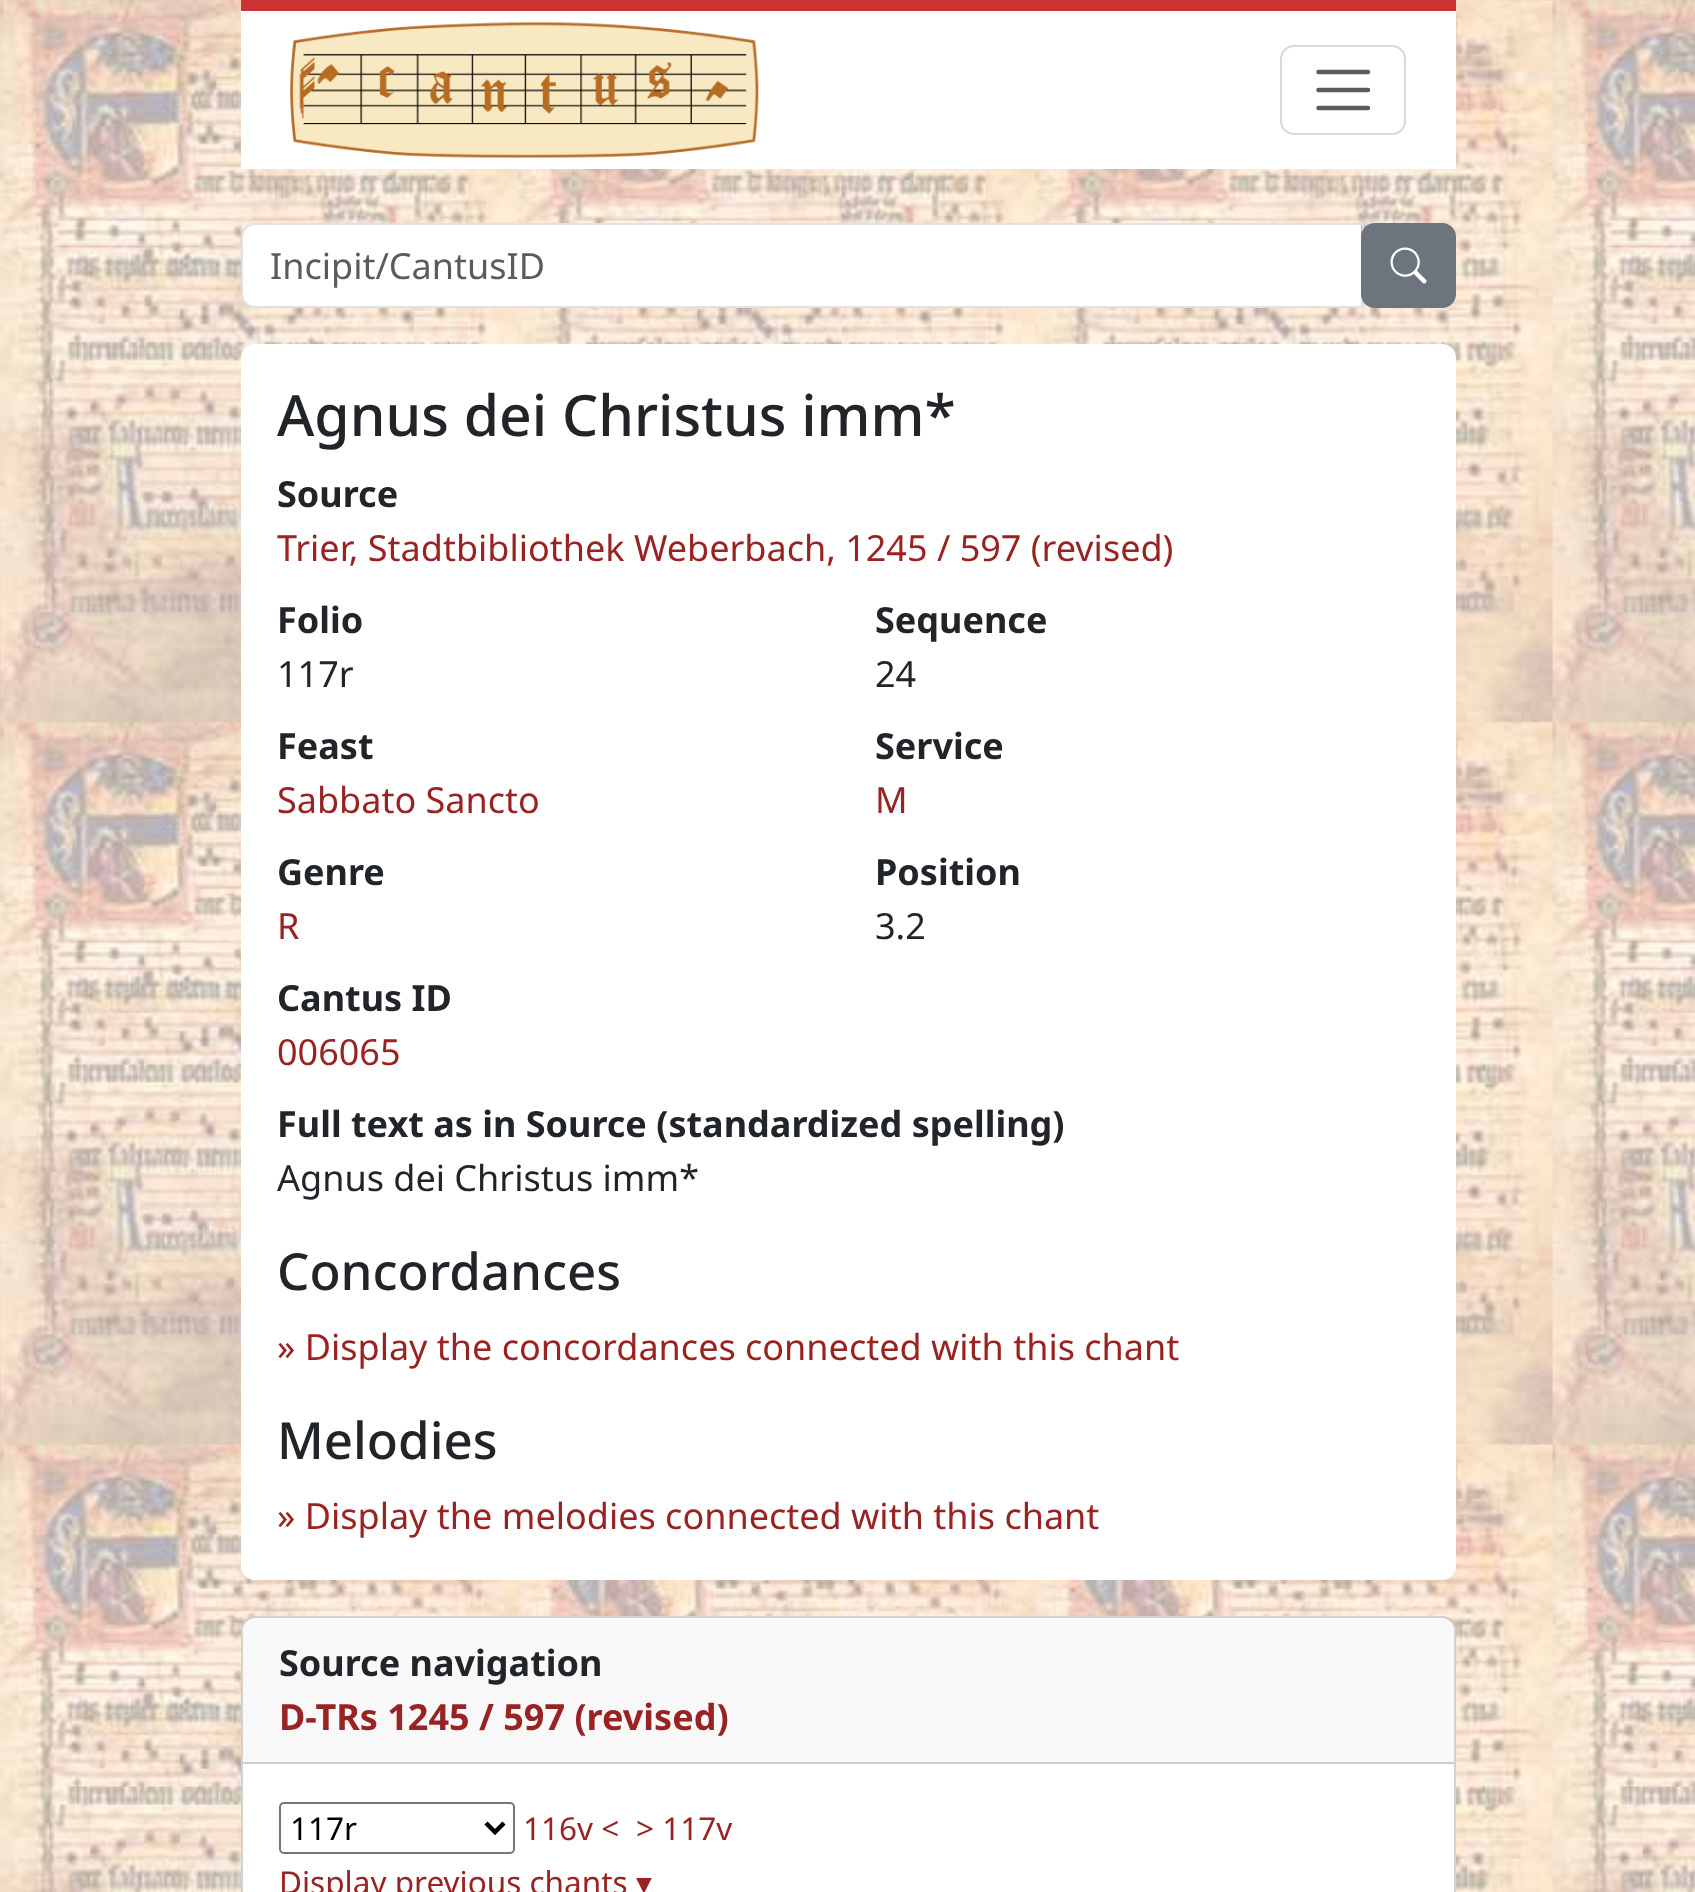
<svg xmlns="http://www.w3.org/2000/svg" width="1695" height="1892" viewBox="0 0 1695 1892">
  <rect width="100%" height="100%" fill="rgb(255,255,255)"/>
  <image x="0" y="0" width="1695" height="1892" href="pic1.png"/>
  <rect x="241" y="11" width="1215" height="158" fill="rgb(255,255,255)"/>
  <rect x="241" y="0" width="1215" height="11" fill="rgb(204,51,51)"/>
  <image x="290" y="22" width="469" height="136" href="pic2.png"/>
  <rect x="1281" y="46" width="124" height="88" rx="13" fill="none" stroke="rgb(217,217,217)" stroke-width="2"/>
  <path d="M1318.5 72H1368M1318.5 90H1368M1318.5 108H1368" fill="none" stroke="rgb(89,92,95)" stroke-width="4.5" stroke-linecap="round"/>
  <path d="M254 225H1361V306H254C248 306 243 301 243 295V236C243 230 248 225 254 225Z" fill="rgb(255,255,255)"/>
  <path d="M255 224H1363V307H255C248 307 242 301 242 294V237C242 230 248 224 255 224Z" fill="none" stroke="rgb(222,226,230)" stroke-width="2"/>
  <text x="270" y="279" font-family="Noto Sans" font-size="36" fill="rgb(89,92,95)">Incipit/CantusID</text>
  <rect x="1362" y="224" width="93" height="83" rx="13" fill="rgb(108,117,125)" stroke="rgb(108,117,125)" stroke-width="2"/>
  <image x="1390" y="247" width="37" height="37" href="pic3.png"/>
  <rect x="241" y="344" width="1215" height="1236" rx="14" fill="rgb(255,255,255)"/>
  <text x="277" y="436" font-family="Noto Sans" font-size="57" font-weight="500" fill="rgb(33,37,41)">Agnus dei Christus imm*</text>
  <text x="277" y="507" font-family="Noto Sans" font-size="36" font-weight="bold" fill="rgb(33,37,41)">Source</text>
  <text x="277" y="561" font-family="Noto Sans" font-size="36" fill="rgb(153,34,34)">Trier, Stadtbibliothek Weberbach, 1245 / 597 (revised)</text>
  <text x="277" y="633" font-family="Noto Sans" font-size="36" font-weight="bold" fill="rgb(33,37,41)">Folio</text>
  <text x="277" y="687" font-family="Noto Sans" font-size="36" fill="rgb(33,37,41)">117r</text>
  <text x="875" y="633" font-family="Noto Sans" font-size="36" font-weight="bold" fill="rgb(33,37,41)">Sequence</text>
  <text x="875" y="687" font-family="Noto Sans" font-size="36" fill="rgb(33,37,41)">24</text>
  <text x="277" y="759" font-family="Noto Sans" font-size="36" font-weight="bold" fill="rgb(33,37,41)">Feast</text>
  <text x="277" y="813" font-family="Noto Sans" font-size="36" fill="rgb(153,34,34)">Sabbato Sancto</text>
  <text x="875" y="759" font-family="Noto Sans" font-size="36" font-weight="bold" fill="rgb(33,37,41)">Service</text>
  <text x="875" y="813" font-family="Noto Sans" font-size="36" fill="rgb(153,34,34)">M</text>
  <text x="277" y="885" font-family="Noto Sans" font-size="36" font-weight="bold" fill="rgb(33,37,41)">Genre</text>
  <text x="277" y="939" font-family="Noto Sans" font-size="36" fill="rgb(153,34,34)">R</text>
  <text x="875" y="885" font-family="Noto Sans" font-size="36" font-weight="bold" fill="rgb(33,37,41)">Position</text>
  <text x="875" y="939" font-family="Noto Sans" font-size="36" fill="rgb(33,37,41)">3.2</text>
  <text x="277" y="1011" font-family="Noto Sans" font-size="36" font-weight="bold" fill="rgb(33,37,41)">Cantus ID</text>
  <text x="277" y="1065" font-family="Noto Sans" font-size="36" fill="rgb(153,34,34)">006065</text>
  <text x="277" y="1137" font-family="Noto Sans" font-size="36" font-weight="bold" fill="rgb(33,37,41)">Full text as in Source (standardized spelling)</text>
  <text x="277" y="1191" font-family="Noto Sans" font-size="36" fill="rgb(33,37,41)">Agnus dei Christus imm*</text>
  <text x="277" y="1290" font-family="Noto Sans" font-size="51" font-weight="500" fill="rgb(33,37,41)">Concordances</text>
  <text x="277" y="1360" font-family="Noto Sans" font-size="36" fill="rgb(153,34,34)">» Display the concordances connected with this chant</text>
  <text x="277" y="1459" font-family="Noto Sans" font-size="51" font-weight="500" fill="rgb(33,37,41)">Melodies</text>
  <text x="277" y="1529" font-family="Noto Sans" font-size="36" fill="rgb(153,34,34)">» Display the melodies connected with this chant</text>
  <rect x="241" y="1616" width="1215" height="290" rx="14" fill="rgb(255,255,255)"/>
  <rect x="242" y="1617" width="1213" height="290" rx="13" fill="none" stroke="rgba(0,0,0,0.18)" stroke-width="2"/>
  <rect x="243" y="1618" width="1211" height="144" fill="rgba(33,37,41,0.03)"/>
  <rect x="243" y="1762" width="1211" height="2" fill="rgb(205,205,205)"/>
  <text x="279" y="1676" font-family="Noto Sans" font-size="36" font-weight="bold" fill="rgb(33,37,41)">Source navigation</text>
  <text x="279" y="1730" font-family="Noto Sans" font-size="36" font-weight="bold" fill="rgb(153,34,34)">D-TRs 1245 / 597 (revised)</text>
  <rect x="280" y="1803" width="234" height="50" rx="4" fill="none" stroke="rgb(118,118,118)" stroke-width="2"/>
  <path d="M486 1823L495 1832L504 1823" fill="none" stroke="rgb(0,0,0)" stroke-width="4.5"/>
  <text x="290" y="1840" font-family="Noto Sans" font-size="31.5" fill="rgb(0,0,0)">117r</text>
  <g font-family="Noto Sans" font-size="31.5" fill="rgb(153,34,34)">
    <text x="523" y="1840">116v &lt;</text>
    <text x="636" y="1840">&gt; 117v</text>
    <text x="279" y="1894">Display previous chants</text>
  </g>
  <text x="636" y="1894" font-family="DejaVu Sans" font-size="31.5" fill="rgb(153,34,34)">▾</text>
</svg>
